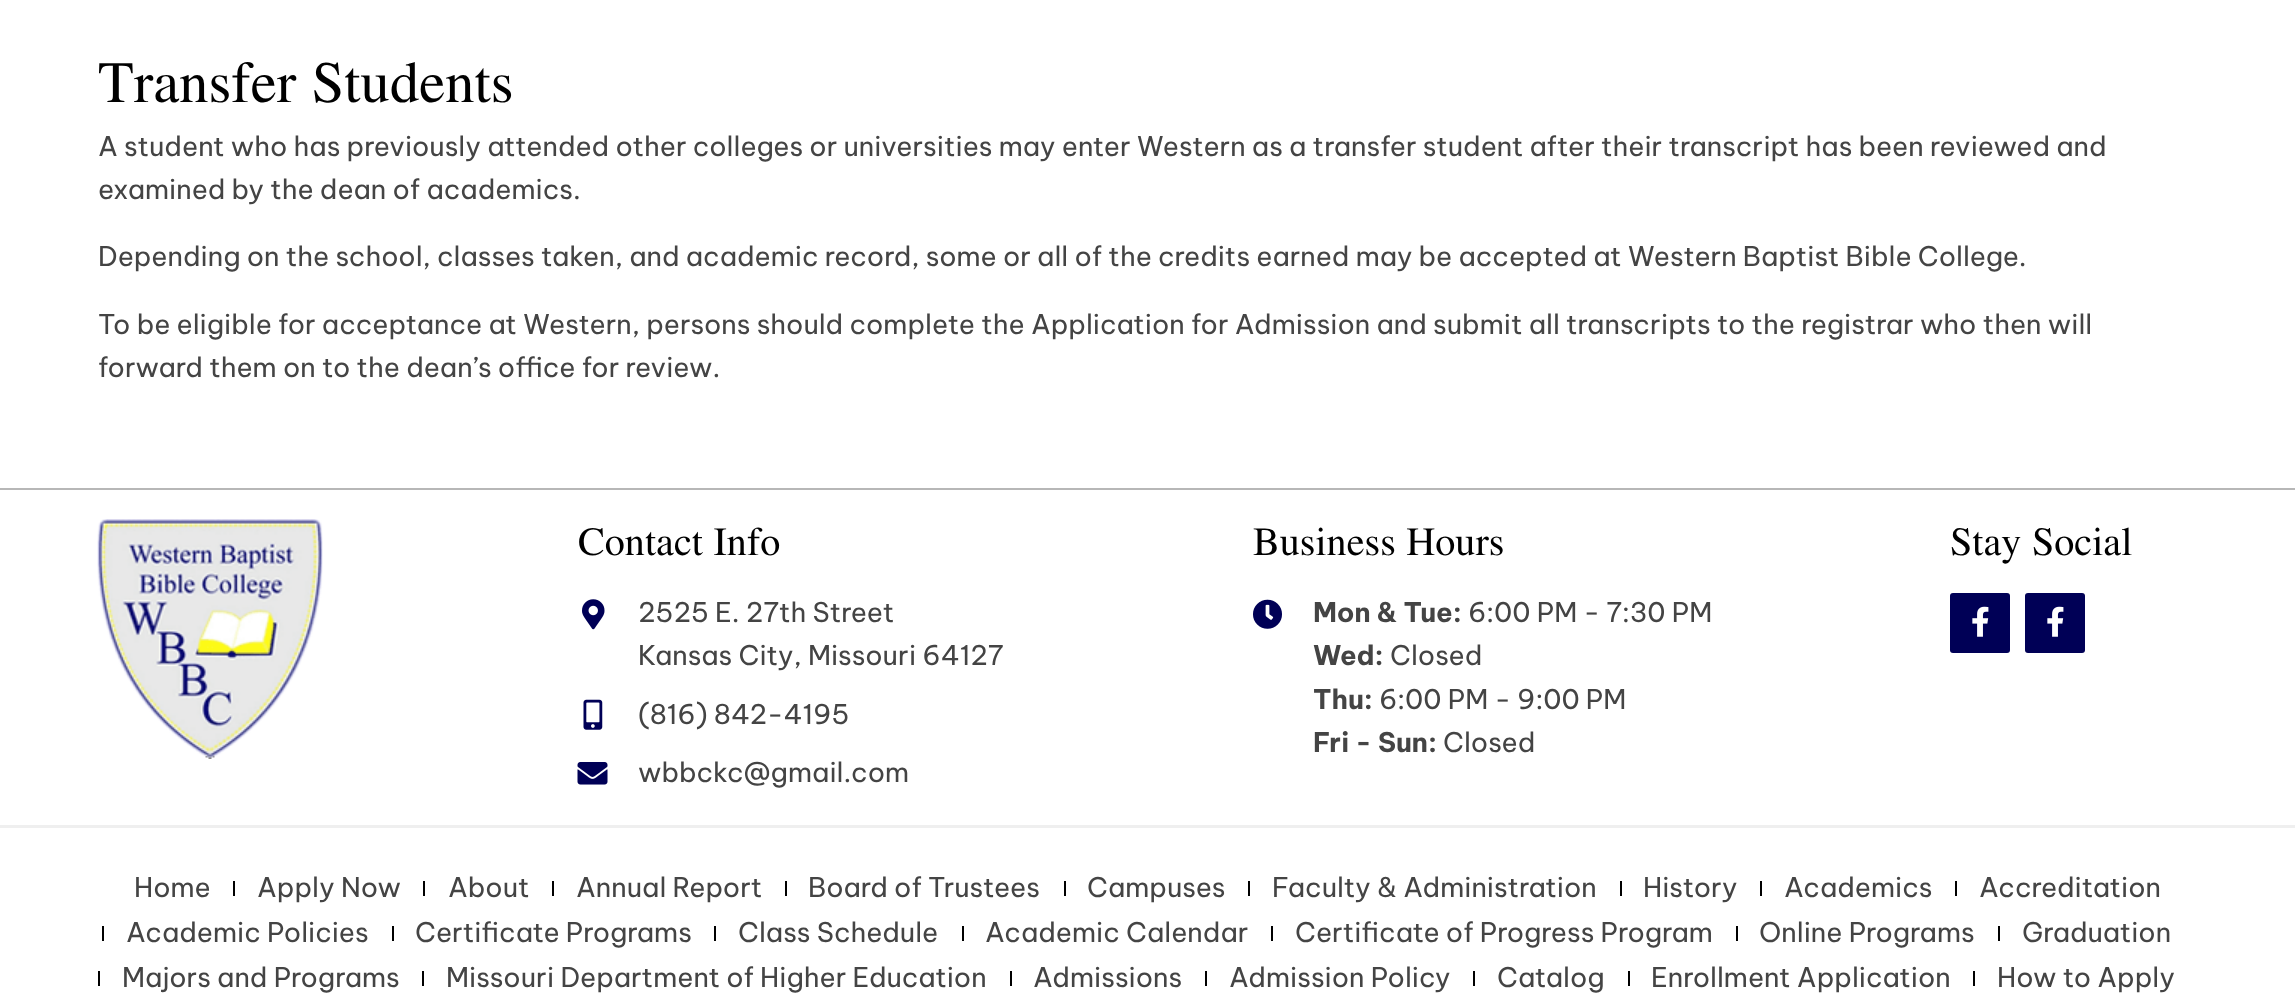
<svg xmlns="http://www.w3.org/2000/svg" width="2295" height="1005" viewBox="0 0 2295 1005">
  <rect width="100%" height="100%" fill="rgb(255,255,255)"/>
  <text x="98" y="102" font-family="Jomolhari" font-size="52.5" fill="rgb(0,0,0)">Transfer Students</text>
  <g font-family="Be Vietnam Pro" font-size="27" fill="rgb(68,68,68)">
    <text>
      <tspan x="98" y="156">A student who has previously attended other colleges or universities may enter Western as a transfer student after their transcript has been reviewed and</tspan>
      <tspan x="98" y="199">examined by the dean of academics.</tspan>
    </text>
    <text x="98" y="266">Depending on the school, classes taken, and academic record, some or all of the credits earned may be accepted at Western Baptist Bible College.</text>
    <text>
      <tspan x="98" y="334">To be eligible for acceptance at Western, persons should complete the Application for Admission and submit all transcripts to the registrar who then will</tspan>
      <tspan x="98" y="377">forward them on to the dean’s office for review.</tspan>
    </text>
  </g>
  <rect x="0" y="488" width="2295" height="2" fill="rgb(183,183,183)"/>
  <image x="97" y="519" width="226" height="240" href="pic1.png"/>
  <text x="578" y="555" font-family="Jomolhari" font-size="36" fill="rgb(0,0,0)">Contact Info</text>
  <image x="582" y="599" width="23" height="31" href="pic2.png"/>
  <g font-family="Be Vietnam Pro" font-size="27" fill="rgb(68,68,68)">
    <text>
      <tspan x="638" y="622">2525 E. 27th Street</tspan>
      <tspan x="638" y="665">Kansas City, Missouri 64127</tspan>
    </text>
  </g>
  <image x="583" y="699" width="20" height="31" href="pic3.png"/>
  <text x="638" y="724" font-family="Be Vietnam Pro" font-size="27" fill="rgb(68,68,68)">(816) 842-4195</text>
  <image x="577" y="762" width="31" height="23" href="pic4.png"/>
  <text x="638" y="782" font-family="Be Vietnam Pro" font-size="27" fill="rgb(68,68,68)">wbbckc@gmail.com</text>
  <text x="1253" y="555" font-family="Jomolhari" font-size="36" fill="rgb(0,0,0)">Business Hours</text>
  <image x="1253" y="599" width="29" height="30" href="pic5.png"/>
  <text x="1313" y="622" font-family="Be Vietnam Pro" font-size="27" font-weight="bold" fill="rgb(68,68,68)">Mon &amp; Tue:</text>
  <text x="1468" y="622" font-family="Be Vietnam Pro" font-size="27" fill="rgb(68,68,68)">6:00 PM - 7:30 PM</text>
  <text x="1313" y="665" font-family="Be Vietnam Pro" font-size="27" font-weight="bold" fill="rgb(68,68,68)">Wed:</text>
  <text x="1390" y="665" font-family="Be Vietnam Pro" font-size="27" fill="rgb(68,68,68)">Closed</text>
  <text x="1313" y="709" font-family="Be Vietnam Pro" font-size="27" font-weight="bold" fill="rgb(68,68,68)">Thu:</text>
  <text x="1379" y="709" font-family="Be Vietnam Pro" font-size="27" fill="rgb(68,68,68)">6:00 PM - 9:00 PM</text>
  <text x="1313" y="752" font-family="Be Vietnam Pro" font-size="27" font-weight="bold" fill="rgb(68,68,68)">Fri - Sun:</text>
  <text x="1443" y="752" font-family="Be Vietnam Pro" font-size="27" fill="rgb(68,68,68)">Closed</text>
  <text x="1950" y="555" font-family="Jomolhari" font-size="36" fill="rgb(0,0,0)">Stay Social</text>
  <rect x="1950" y="593" width="60" height="60" rx="3" fill="rgb(0,0,86)"/>
  <image x="1972" y="606" width="17" height="31" href="pic6.png"/>
  <rect x="2025" y="593" width="60" height="60" rx="3" fill="rgb(0,0,86)"/>
  <image x="2047" y="606" width="17" height="31" href="pic6.png"/>
  <rect x="0" y="825" width="2295" height="3" fill="rgb(239,239,239)"/>
  <text x="134" y="897" font-family="Be Vietnam Pro" font-size="27" fill="rgb(68,68,68)">Home</text>
  <rect x="233" y="881" width="2" height="15" fill="rgb(0,0,0)"/>
  <text x="257" y="897" font-family="Be Vietnam Pro" font-size="27" fill="rgb(68,68,68)">Apply Now</text>
  <rect x="423" y="881" width="2" height="15" fill="rgb(0,0,0)"/>
  <text x="448" y="897" font-family="Be Vietnam Pro" font-size="27" fill="rgb(68,68,68)">About</text>
  <rect x="552" y="881" width="2" height="15" fill="rgb(0,0,0)"/>
  <text x="576" y="897" font-family="Be Vietnam Pro" font-size="27" fill="rgb(68,68,68)">Annual Report</text>
  <rect x="785" y="881" width="2" height="15" fill="rgb(0,0,0)"/>
  <text x="808" y="897" font-family="Be Vietnam Pro" font-size="27" fill="rgb(68,68,68)">Board of Trustees</text>
  <rect x="1064" y="881" width="2" height="15" fill="rgb(0,0,0)"/>
  <text x="1087" y="897" font-family="Be Vietnam Pro" font-size="27" fill="rgb(68,68,68)">Campuses</text>
  <rect x="1248" y="881" width="2" height="15" fill="rgb(0,0,0)"/>
  <text x="1272" y="897" font-family="Be Vietnam Pro" font-size="27" fill="rgb(68,68,68)">Faculty &amp; Administration</text>
  <rect x="1620" y="881" width="2" height="15" fill="rgb(0,0,0)"/>
  <text x="1643" y="897" font-family="Be Vietnam Pro" font-size="27" fill="rgb(68,68,68)">History</text>
  <rect x="1760" y="881" width="2" height="15" fill="rgb(0,0,0)"/>
  <text x="1784" y="897" font-family="Be Vietnam Pro" font-size="27" fill="rgb(68,68,68)">Academics</text>
  <rect x="1955" y="881" width="2" height="15" fill="rgb(0,0,0)"/>
  <text x="1979" y="897" font-family="Be Vietnam Pro" font-size="27" fill="rgb(68,68,68)">Accreditation</text>
  <rect x="102" y="926" width="2" height="15" fill="rgb(0,0,0)"/>
  <text x="126" y="942" font-family="Be Vietnam Pro" font-size="27" fill="rgb(68,68,68)">Academic Policies</text>
  <rect x="392" y="926" width="2" height="15" fill="rgb(0,0,0)"/>
  <text x="415" y="942" font-family="Be Vietnam Pro" font-size="27" fill="rgb(68,68,68)">Certificate Programs</text>
  <rect x="714" y="926" width="2" height="15" fill="rgb(0,0,0)"/>
  <text x="738" y="942" font-family="Be Vietnam Pro" font-size="27" fill="rgb(68,68,68)">Class Schedule</text>
  <rect x="962" y="926" width="2" height="15" fill="rgb(0,0,0)"/>
  <text x="985" y="942" font-family="Be Vietnam Pro" font-size="27" fill="rgb(68,68,68)">Academic Calendar</text>
  <rect x="1271" y="926" width="2" height="15" fill="rgb(0,0,0)"/>
  <text x="1295" y="942" font-family="Be Vietnam Pro" font-size="27" fill="rgb(68,68,68)">Certificate of Progress Program</text>
  <rect x="1736" y="926" width="2" height="15" fill="rgb(0,0,0)"/>
  <text x="1759" y="942" font-family="Be Vietnam Pro" font-size="27" fill="rgb(68,68,68)">Online Programs</text>
  <rect x="1998" y="926" width="2" height="15" fill="rgb(0,0,0)"/>
  <text x="2022" y="942" font-family="Be Vietnam Pro" font-size="27" fill="rgb(68,68,68)">Graduation</text>
  <rect x="98" y="971" width="2" height="15" fill="rgb(0,0,0)"/>
  <text x="122" y="987" font-family="Be Vietnam Pro" font-size="27" fill="rgb(68,68,68)">Majors and Programs</text>
  <rect x="422" y="971" width="2" height="15" fill="rgb(0,0,0)"/>
  <text x="446" y="987" font-family="Be Vietnam Pro" font-size="27" fill="rgb(68,68,68)">Missouri Department of Higher Education</text>
  <rect x="1010" y="971" width="2" height="15" fill="rgb(0,0,0)"/>
  <text x="1033" y="987" font-family="Be Vietnam Pro" font-size="27" fill="rgb(68,68,68)">Admissions</text>
  <rect x="1205" y="971" width="2" height="15" fill="rgb(0,0,0)"/>
  <text x="1229" y="987" font-family="Be Vietnam Pro" font-size="27" fill="rgb(68,68,68)">Admission Policy</text>
  <rect x="1473" y="971" width="2" height="15" fill="rgb(0,0,0)"/>
  <text x="1497" y="987" font-family="Be Vietnam Pro" font-size="27" fill="rgb(68,68,68)">Catalog</text>
  <rect x="1628" y="971" width="2" height="15" fill="rgb(0,0,0)"/>
  <text x="1651" y="987" font-family="Be Vietnam Pro" font-size="27" fill="rgb(68,68,68)">Enrollment Application</text>
  <rect x="1973" y="971" width="2" height="15" fill="rgb(0,0,0)"/>
  <text x="1997" y="987" font-family="Be Vietnam Pro" font-size="27" fill="rgb(68,68,68)">How to Apply</text>
</svg>
